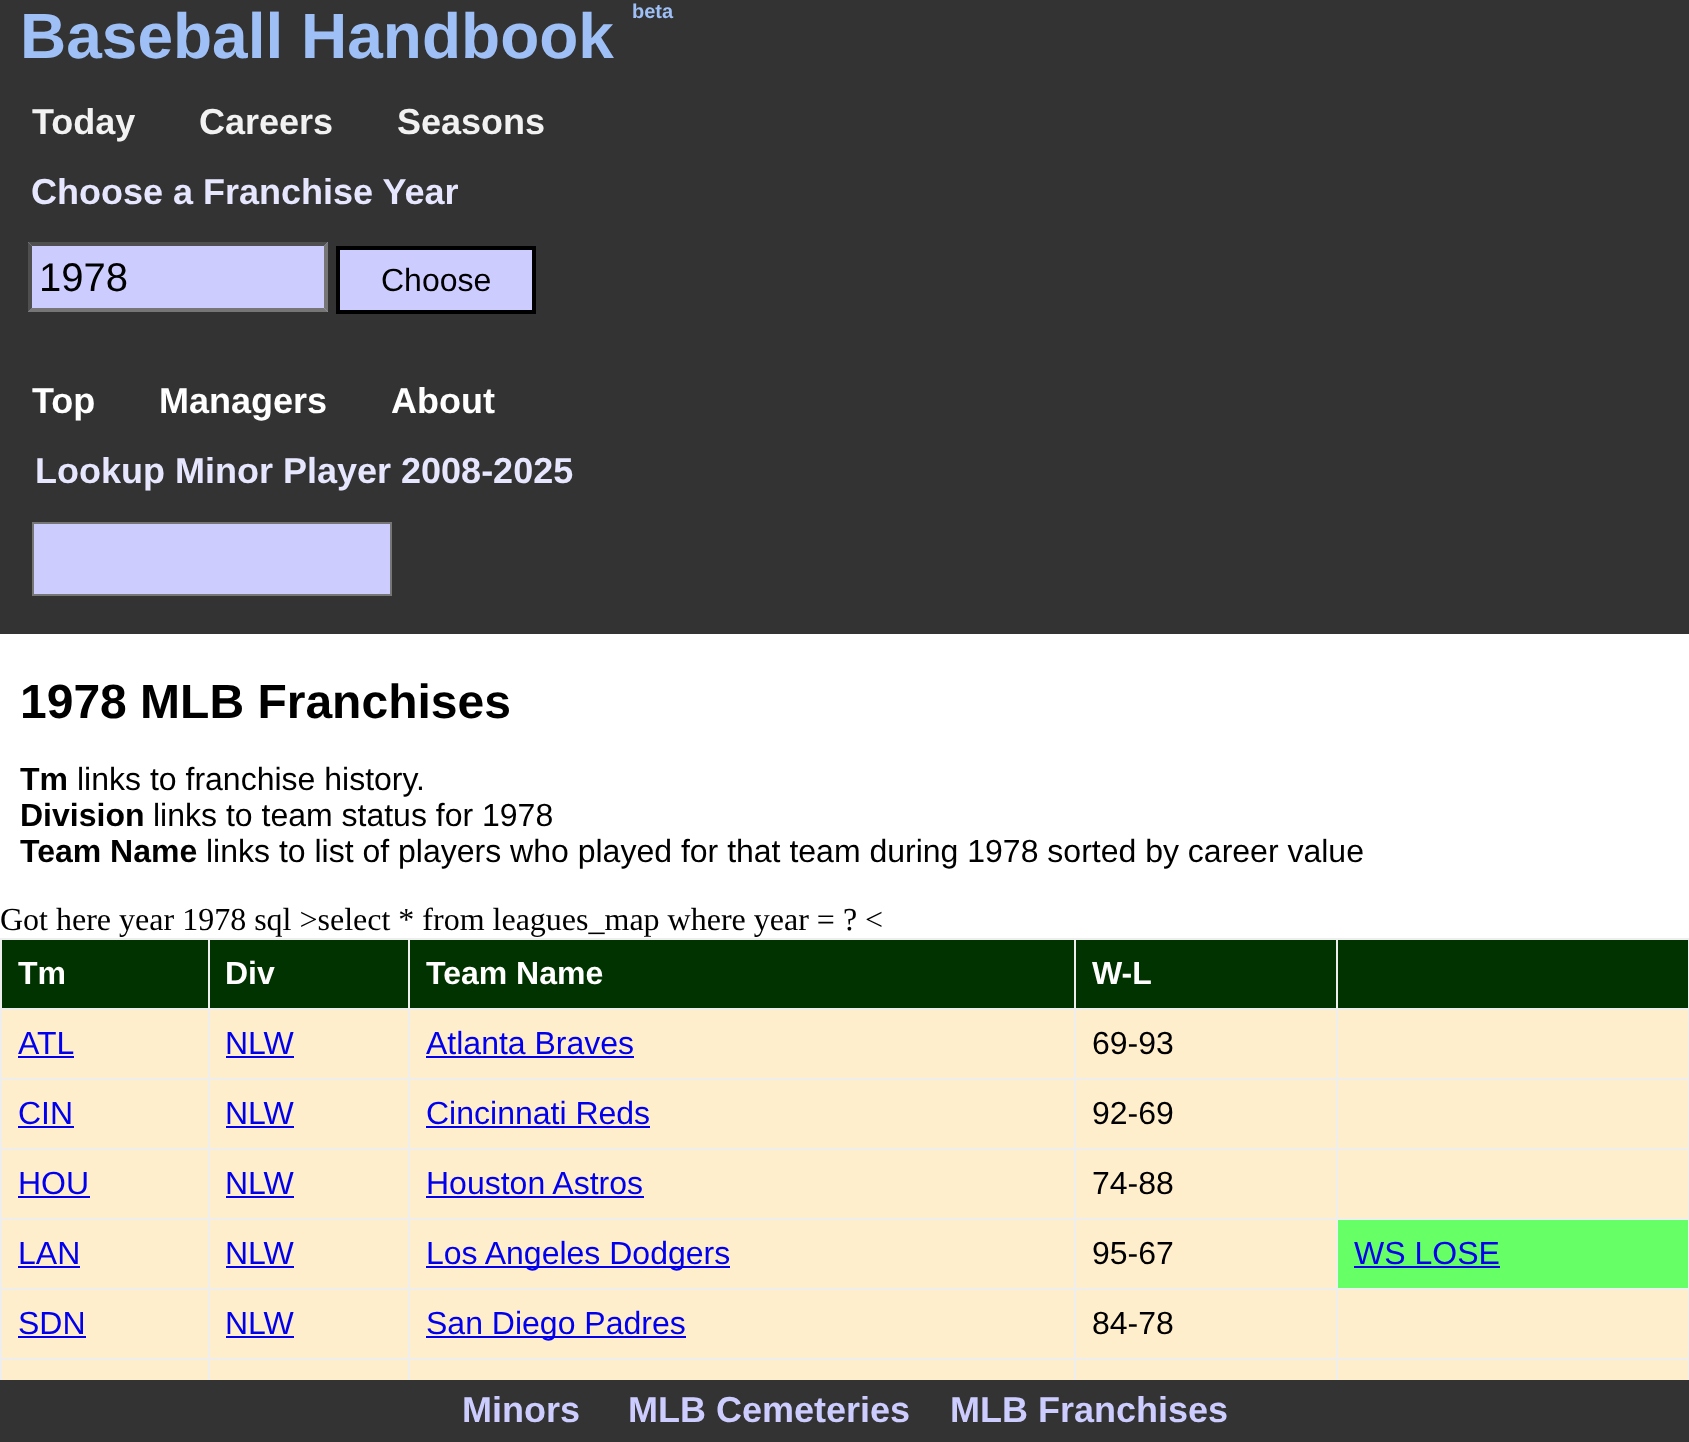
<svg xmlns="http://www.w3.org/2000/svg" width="1689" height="1442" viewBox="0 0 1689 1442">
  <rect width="100%" height="100%" fill="rgb(255,255,255)"/>
  <rect x="0" y="0" width="1689" height="354" fill="rgb(51,51,51)"/>
  <text x="20" y="58" font-family="Liberation Sans" font-size="64" font-weight="bold" fill="rgb(158,192,247)">Baseball Handbook</text>
  <text x="632" y="18" font-family="Liberation Sans" font-size="20" font-weight="bold" fill="rgb(158,192,247)">beta</text>
  <g font-family="Liberation Sans" font-size="36" font-weight="bold" fill="rgb(242,242,242)">
    <text x="32" y="134">Today</text>
    <text x="199" y="134">Careers</text>
    <text x="397" y="134">Seasons</text>
  </g>
  <text x="31" y="204" font-family="Liberation Sans" font-size="36" font-weight="bold" fill="rgb(230,230,255)">Choose a Franchise Year</text>
  <rect x="28" y="242" width="300" height="70" fill="rgb(204,204,255)"/>
  <path d="M28 242H328L324 246H32Z" fill="rgb(79,79,79)"/>
  <path d="M328 242V312L324 308V246Z" fill="rgb(118,118,118)"/>
  <path d="M328 312H28L32 308H324Z" fill="rgb(118,118,118)"/>
  <path d="M28 312V242L32 246V308Z" fill="rgb(79,79,79)"/>
  <text x="39" y="291" font-family="Liberation Sans" font-size="40" fill="rgb(0,0,0)">1978</text>
  <rect x="338" y="248" width="196" height="64" fill="rgb(204,204,255)" stroke="rgb(0,0,0)" stroke-width="4"/>
  <text x="381" y="291" font-family="Liberation Sans" font-size="32" fill="rgb(0,0,0)">Choose</text>
  <rect x="0" y="354" width="1689" height="98" fill="rgb(51,51,51)"/>
  <g font-family="Liberation Sans" font-size="36" font-weight="bold" fill="rgb(255,255,255)">
    <text x="32" y="413">Top</text>
    <text x="159" y="413">Managers</text>
    <text x="391" y="413">About</text>
  </g>
  <rect x="0" y="452" width="1689" height="182" fill="rgb(51,51,51)"/>
  <text x="35" y="483" font-family="Liberation Sans" font-size="36" font-weight="bold" fill="rgb(230,230,255)">Lookup Minor Player 2008-2025</text>
  <rect x="33" y="523" width="358" height="72" fill="rgb(204,204,255)" stroke="rgb(118,118,118)" stroke-width="2"/>
  <text x="20" y="718" font-family="Liberation Sans" font-size="48" font-weight="bold" fill="rgb(0,0,0)">1978 MLB Franchises</text>
  <text x="20" y="790" font-family="Liberation Sans" font-size="32" font-weight="bold" fill="rgb(0,0,0)">Tm</text>
  <text x="77" y="790" font-family="Liberation Sans" font-size="32" fill="rgb(0,0,0)">links to franchise history.</text>
  <text x="20" y="826" font-family="Liberation Sans" font-size="32" font-weight="bold" fill="rgb(0,0,0)">Division</text>
  <text x="153" y="826" font-family="Liberation Sans" font-size="32" fill="rgb(0,0,0)">links to team status for 1978</text>
  <text x="20" y="862" font-family="Liberation Sans" font-size="32" font-weight="bold" fill="rgb(0,0,0)">Team Name</text>
  <text x="206" y="862" font-family="Liberation Sans" font-size="32" fill="rgb(0,0,0)">links to list of players who played for that team during 1978 sorted by career value</text>
  <text x="0" y="930" font-family="Liberation Serif" font-size="32" fill="rgb(0,0,0)">Got here year 1978 sql &gt;select * from leagues_map where year = ? &lt;</text>
  <rect x="2" y="1010" width="1686" height="370" fill="rgb(255,238,204)"/>
  <rect x="2" y="940" width="206" height="68" fill="rgb(0,51,0)"/>
  <rect x="1336" y="938" width="353" height="2" fill="rgb(238,238,238)"/>
  <rect x="1336" y="1008" width="353" height="2" fill="rgb(238,238,238)"/>
  <rect x="1336" y="1078" width="353" height="2" fill="rgb(238,238,238)"/>
  <rect x="1336" y="1148" width="353" height="2" fill="rgb(238,238,238)"/>
  <rect x="1336" y="1218" width="353" height="2" fill="rgb(238,238,238)"/>
  <rect x="1336" y="1288" width="353" height="2" fill="rgb(238,238,238)"/>
  <rect x="1336" y="1358" width="353" height="2" fill="rgb(238,238,238)"/>
  <rect x="1336" y="1358" width="2" height="22" fill="rgb(238,238,238)"/>
  <rect x="1074" y="1358" width="264" height="2" fill="rgb(238,238,238)"/>
  <rect x="1336" y="1288" width="2" height="72" fill="rgb(238,238,238)"/>
  <rect x="1074" y="1288" width="264" height="2" fill="rgb(238,238,238)"/>
  <rect x="1336" y="1218" width="2" height="72" fill="rgb(238,238,238)"/>
  <rect x="1074" y="1218" width="264" height="2" fill="rgb(238,238,238)"/>
  <rect x="1336" y="1148" width="2" height="72" fill="rgb(238,238,238)"/>
  <rect x="1074" y="1148" width="264" height="2" fill="rgb(238,238,238)"/>
  <rect x="1336" y="1078" width="2" height="72" fill="rgb(238,238,238)"/>
  <rect x="1074" y="1078" width="264" height="2" fill="rgb(238,238,238)"/>
  <rect x="1336" y="1008" width="2" height="72" fill="rgb(238,238,238)"/>
  <rect x="1074" y="1008" width="264" height="2" fill="rgb(238,238,238)"/>
  <rect x="1336" y="938" width="2" height="72" fill="rgb(238,238,238)"/>
  <rect x="1074" y="938" width="264" height="2" fill="rgb(238,238,238)"/>
  <rect x="1074" y="1358" width="2" height="22" fill="rgb(238,238,238)"/>
  <rect x="408" y="1358" width="668" height="2" fill="rgb(238,238,238)"/>
  <rect x="1074" y="1288" width="2" height="72" fill="rgb(238,238,238)"/>
  <rect x="408" y="1288" width="668" height="2" fill="rgb(238,238,238)"/>
  <rect x="1074" y="1218" width="2" height="72" fill="rgb(238,238,238)"/>
  <rect x="408" y="1218" width="668" height="2" fill="rgb(238,238,238)"/>
  <rect x="1074" y="1148" width="2" height="72" fill="rgb(238,238,238)"/>
  <rect x="408" y="1148" width="668" height="2" fill="rgb(238,238,238)"/>
  <rect x="1074" y="1078" width="2" height="72" fill="rgb(238,238,238)"/>
  <rect x="408" y="1078" width="668" height="2" fill="rgb(238,238,238)"/>
  <rect x="1074" y="1008" width="2" height="72" fill="rgb(238,238,238)"/>
  <rect x="408" y="1008" width="668" height="2" fill="rgb(238,238,238)"/>
  <rect x="1074" y="938" width="2" height="72" fill="rgb(238,238,238)"/>
  <rect x="408" y="938" width="668" height="2" fill="rgb(238,238,238)"/>
  <rect x="408" y="1358" width="2" height="22" fill="rgb(238,238,238)"/>
  <rect x="208" y="1358" width="202" height="2" fill="rgb(238,238,238)"/>
  <rect x="408" y="1288" width="2" height="72" fill="rgb(238,238,238)"/>
  <rect x="208" y="1288" width="202" height="2" fill="rgb(238,238,238)"/>
  <rect x="408" y="1218" width="2" height="72" fill="rgb(238,238,238)"/>
  <rect x="208" y="1218" width="202" height="2" fill="rgb(238,238,238)"/>
  <rect x="408" y="1148" width="2" height="72" fill="rgb(238,238,238)"/>
  <rect x="208" y="1148" width="202" height="2" fill="rgb(238,238,238)"/>
  <rect x="408" y="1078" width="2" height="72" fill="rgb(238,238,238)"/>
  <rect x="208" y="1078" width="202" height="2" fill="rgb(238,238,238)"/>
  <rect x="408" y="1008" width="2" height="72" fill="rgb(238,238,238)"/>
  <rect x="208" y="1008" width="202" height="2" fill="rgb(238,238,238)"/>
  <rect x="408" y="938" width="2" height="72" fill="rgb(238,238,238)"/>
  <rect x="208" y="938" width="202" height="2" fill="rgb(238,238,238)"/>
  <rect x="208" y="1358" width="2" height="22" fill="rgb(238,238,238)"/>
  <rect x="0" y="1358" width="210" height="2" fill="rgb(238,238,238)"/>
  <rect x="208" y="1288" width="2" height="72" fill="rgb(238,238,238)"/>
  <rect x="0" y="1288" width="210" height="2" fill="rgb(238,238,238)"/>
  <rect x="208" y="1218" width="2" height="72" fill="rgb(238,238,238)"/>
  <rect x="0" y="1218" width="210" height="2" fill="rgb(238,238,238)"/>
  <rect x="208" y="1148" width="2" height="72" fill="rgb(238,238,238)"/>
  <rect x="0" y="1148" width="210" height="2" fill="rgb(238,238,238)"/>
  <rect x="208" y="1078" width="2" height="72" fill="rgb(238,238,238)"/>
  <rect x="0" y="1078" width="210" height="2" fill="rgb(238,238,238)"/>
  <rect x="208" y="1008" width="2" height="72" fill="rgb(238,238,238)"/>
  <rect x="0" y="1008" width="210" height="2" fill="rgb(238,238,238)"/>
  <rect x="208" y="938" width="2" height="72" fill="rgb(238,238,238)"/>
  <rect x="0" y="938" width="210" height="2" fill="rgb(238,238,238)"/>
  <rect x="0" y="1358" width="2" height="22" fill="rgb(238,238,238)"/>
  <rect x="0" y="1288" width="2" height="72" fill="rgb(238,238,238)"/>
  <rect x="0" y="1218" width="2" height="72" fill="rgb(238,238,238)"/>
  <rect x="0" y="1148" width="2" height="72" fill="rgb(238,238,238)"/>
  <rect x="0" y="1078" width="2" height="72" fill="rgb(238,238,238)"/>
  <rect x="0" y="1008" width="2" height="72" fill="rgb(238,238,238)"/>
  <rect x="0" y="938" width="2" height="72" fill="rgb(238,238,238)"/>
  <text x="18" y="984" font-family="Liberation Sans" font-size="32" font-weight="bold" fill="rgb(255,255,255)">Tm</text>
  <rect x="210" y="940" width="198" height="68" fill="rgb(0,51,0)"/>
  <text x="225" y="984" font-family="Liberation Sans" font-size="32" font-weight="bold" fill="rgb(255,255,255)">Div</text>
  <rect x="410" y="940" width="664" height="68" fill="rgb(0,51,0)"/>
  <text x="426" y="984" font-family="Liberation Sans" font-size="32" font-weight="bold" fill="rgb(255,255,255)">Team Name</text>
  <rect x="1076" y="940" width="260" height="68" fill="rgb(0,51,0)"/>
  <text x="1092" y="984" font-family="Liberation Sans" font-size="32" font-weight="bold" fill="rgb(255,255,255)">W-L</text>
  <rect x="1338" y="940" width="350" height="68" fill="rgb(0,51,0)"/>
  <rect x="1688" y="1358" width="1" height="22" fill="rgb(238,238,238)"/>
  <rect x="1688" y="1288" width="1" height="72" fill="rgb(238,238,238)"/>
  <rect x="1688" y="1218" width="1" height="72" fill="rgb(238,238,238)"/>
  <rect x="1688" y="1148" width="1" height="72" fill="rgb(238,238,238)"/>
  <rect x="1688" y="1078" width="1" height="72" fill="rgb(238,238,238)"/>
  <rect x="1688" y="1008" width="1" height="72" fill="rgb(238,238,238)"/>
  <rect x="1688" y="938" width="1" height="72" fill="rgb(238,238,238)"/>
  <text x="18" y="1054" font-family="Liberation Sans" font-size="32" fill="rgb(0,0,238)">ATL</text>
  <rect x="18" y="1056" width="56" height="2" fill="rgb(0,0,238)"/>
  <text x="225" y="1054" font-family="Liberation Sans" font-size="32" fill="rgb(0,0,238)">NLW</text>
  <rect x="226" y="1056" width="68" height="2" fill="rgb(0,0,238)"/>
  <text x="426" y="1054" font-family="Liberation Sans" font-size="32" fill="rgb(0,0,238)">Atlanta Braves</text>
  <rect x="426" y="1056" width="208" height="2" fill="rgb(0,0,238)"/>
  <text x="1092" y="1054" font-family="Liberation Sans" font-size="32" fill="rgb(0,0,0)">69-93</text>
  <text x="18" y="1124" font-family="Liberation Sans" font-size="32" fill="rgb(0,0,238)">CIN</text>
  <rect x="18" y="1126" width="56" height="2" fill="rgb(0,0,238)"/>
  <text x="225" y="1124" font-family="Liberation Sans" font-size="32" fill="rgb(0,0,238)">NLW</text>
  <rect x="226" y="1126" width="68" height="2" fill="rgb(0,0,238)"/>
  <text x="426" y="1124" font-family="Liberation Sans" font-size="32" fill="rgb(0,0,238)">Cincinnati Reds</text>
  <rect x="426" y="1126" width="224" height="2" fill="rgb(0,0,238)"/>
  <text x="1092" y="1124" font-family="Liberation Sans" font-size="32" fill="rgb(0,0,0)">92-69</text>
  <text x="18" y="1194" font-family="Liberation Sans" font-size="32" fill="rgb(0,0,238)">HOU</text>
  <rect x="18" y="1196" width="72" height="2" fill="rgb(0,0,238)"/>
  <text x="225" y="1194" font-family="Liberation Sans" font-size="32" fill="rgb(0,0,238)">NLW</text>
  <rect x="226" y="1196" width="68" height="2" fill="rgb(0,0,238)"/>
  <text x="426" y="1194" font-family="Liberation Sans" font-size="32" fill="rgb(0,0,238)">Houston Astros</text>
  <rect x="426" y="1196" width="218" height="2" fill="rgb(0,0,238)"/>
  <text x="1092" y="1194" font-family="Liberation Sans" font-size="32" fill="rgb(0,0,0)">74-88</text>
  <text x="18" y="1264" font-family="Liberation Sans" font-size="32" fill="rgb(0,0,238)">LAN</text>
  <rect x="18" y="1266" width="62" height="2" fill="rgb(0,0,238)"/>
  <text x="225" y="1264" font-family="Liberation Sans" font-size="32" fill="rgb(0,0,238)">NLW</text>
  <rect x="226" y="1266" width="68" height="2" fill="rgb(0,0,238)"/>
  <rect x="426" y="1266" width="304" height="2" fill="rgb(0,0,238)"/>
  <text x="426" y="1264" font-family="Liberation Sans" font-size="32" fill="rgb(0,0,238)">Los Angeles Dodgers</text>
  <text x="1092" y="1264" font-family="Liberation Sans" font-size="32" fill="rgb(0,0,0)">95-67</text>
  <rect x="1338" y="1220" width="350" height="68" fill="rgb(102,255,102)"/>
  <text x="1354" y="1264" font-family="Liberation Sans" font-size="32" fill="rgb(0,0,238)">WS LOSE</text>
  <rect x="1354" y="1266" width="146" height="2" fill="rgb(0,0,238)"/>
  <text x="18" y="1334" font-family="Liberation Sans" font-size="32" fill="rgb(0,0,238)">SDN</text>
  <rect x="18" y="1336" width="68" height="2" fill="rgb(0,0,238)"/>
  <text x="225" y="1334" font-family="Liberation Sans" font-size="32" fill="rgb(0,0,238)">NLW</text>
  <rect x="226" y="1336" width="68" height="2" fill="rgb(0,0,238)"/>
  <rect x="426" y="1336" width="260" height="2" fill="rgb(0,0,238)"/>
  <text x="426" y="1334" font-family="Liberation Sans" font-size="32" fill="rgb(0,0,238)">San Diego Padres</text>
  <text x="1092" y="1334" font-family="Liberation Sans" font-size="32" fill="rgb(0,0,0)">84-78</text>
  <rect x="0" y="1380" width="1689" height="62" fill="rgb(51,51,51)"/>
  <g font-family="Liberation Sans" font-size="36" font-weight="bold" fill="rgb(204,204,255)">
    <text x="462" y="1422">Minors</text>
    <text x="628" y="1422">MLB Cemeteries</text>
    <text x="950" y="1422">MLB Franchises</text>
  </g>
</svg>
